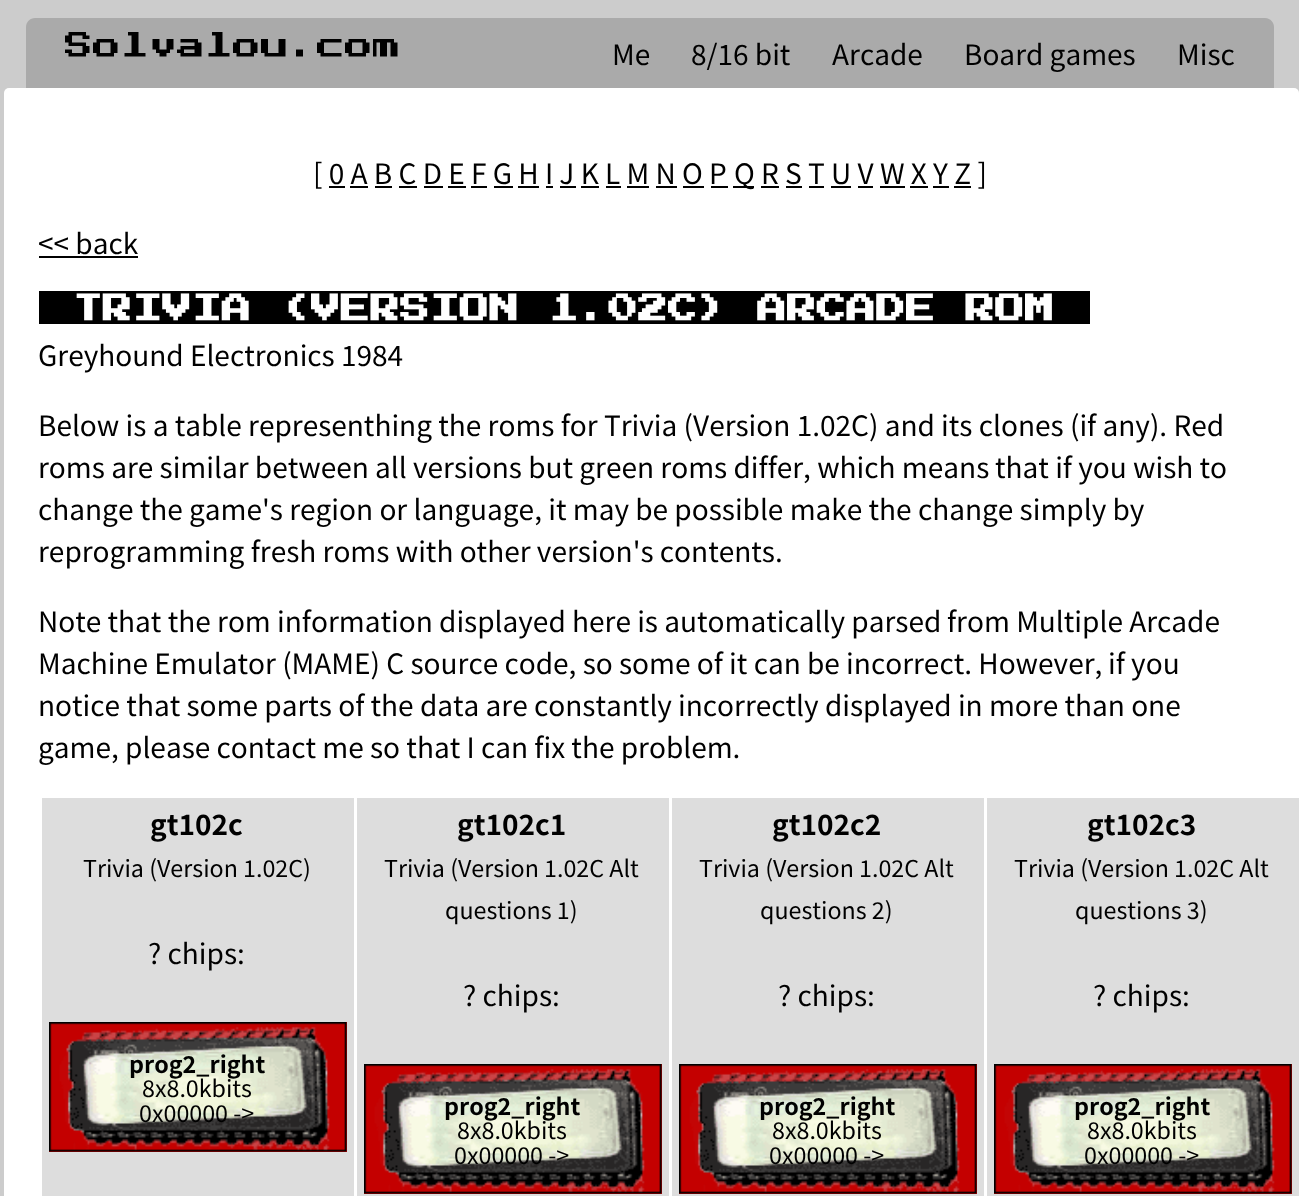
<svg xmlns="http://www.w3.org/2000/svg" width="1299" height="1196" viewBox="0 0 1299 1196">
  <style>*{font-kerning:none!important;font-variant-ligatures:none!important}</style>
  <rect width="100%" height="100%" fill="rgb(204,204,204)"/>
  <path d="M35 18H1265C1270 18 1274 22 1274 27V88H26V27C26 22 30 18 35 18Z" fill="rgb(170,170,170)"/>
  <text x="65" y="60" font-family="'Press Start 2P'" font-size="28" fill="rgb(0,0,0)">Solvalou.com</text>
  <g font-family="Noto Sans TC" font-size="28" fill="rgb(0,0,0)">
    <text x="612" y="65">Me</text>
    <text x="691" y="65">8/16 bit</text>
    <text x="832" y="65">Arcade</text>
    <text x="964" y="65">Board games</text>
    <text x="1177" y="65">Misc</text>
  </g>
  <rect x="4" y="88" width="1295" height="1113" rx="5" fill="rgb(255,255,255)"/>
  <text x="313" y="184" font-family="Noto Sans TC" font-size="28" fill="rgb(0,0,0)">[ 0 A B C D E F G H I J K L M N O P</text>
  <rect x="733" y="186" width="21" height="2" fill="rgb(0,0,0)"/>
  <text x="734" y="184" font-family="Noto Sans TC" font-size="28" fill="rgb(0,0,0)">Q R S T U V W X Y Z ]</text>
  <rect x="329" y="186" width="16" height="2" fill="rgb(0,0,0)"/>
  <rect x="350" y="186" width="18" height="2" fill="rgb(0,0,0)"/>
  <rect x="375" y="186" width="17" height="2" fill="rgb(0,0,0)"/>
  <rect x="399" y="186" width="18" height="2" fill="rgb(0,0,0)"/>
  <rect x="424" y="186" width="19" height="2" fill="rgb(0,0,0)"/>
  <rect x="448" y="186" width="18" height="2" fill="rgb(0,0,0)"/>
  <rect x="471" y="186" width="16" height="2" fill="rgb(0,0,0)"/>
  <rect x="494" y="186" width="19" height="2" fill="rgb(0,0,0)"/>
  <rect x="518" y="186" width="21" height="2" fill="rgb(0,0,0)"/>
  <rect x="546" y="186" width="7" height="2" fill="rgb(0,0,0)"/>
  <rect x="560" y="186" width="16" height="2" fill="rgb(0,0,0)"/>
  <rect x="581" y="186" width="18" height="2" fill="rgb(0,0,0)"/>
  <rect x="606" y="186" width="15" height="2" fill="rgb(0,0,0)"/>
  <rect x="627" y="186" width="22" height="2" fill="rgb(0,0,0)"/>
  <rect x="656" y="186" width="21" height="2" fill="rgb(0,0,0)"/>
  <rect x="683" y="186" width="21" height="2" fill="rgb(0,0,0)"/>
  <rect x="711" y="186" width="17" height="2" fill="rgb(0,0,0)"/>
  <rect x="761" y="186" width="18" height="2" fill="rgb(0,0,0)"/>
  <rect x="786" y="186" width="16" height="2" fill="rgb(0,0,0)"/>
  <rect x="809" y="186" width="15" height="2" fill="rgb(0,0,0)"/>
  <rect x="831" y="186" width="20" height="2" fill="rgb(0,0,0)"/>
  <rect x="858" y="186" width="15" height="2" fill="rgb(0,0,0)"/>
  <rect x="880" y="186" width="25" height="2" fill="rgb(0,0,0)"/>
  <rect x="910" y="186" width="18" height="2" fill="rgb(0,0,0)"/>
  <rect x="933" y="186" width="16" height="2" fill="rgb(0,0,0)"/>
  <rect x="954" y="186" width="17" height="2" fill="rgb(0,0,0)"/>
  <text x="38" y="254" font-family="Noto Sans TC" font-size="28" fill="rgb(0,0,0)">&lt;&lt; back</text>
  <rect x="39" y="256" width="99" height="2" fill="rgb(0,0,0)"/>
  <rect x="39" y="291" width="1051" height="33" fill="rgb(0,0,0)"/>
  <text x="73" y="324" font-family="'Press Start 2P'" font-size="29.75" font-weight="bold" fill="rgb(255,255,255)">TRIVIA (VERSION 1.02C) ARCADE ROM</text>
  <g font-family="Noto Sans TC" font-size="28" fill="rgb(0,0,0)">
    <text x="38" y="366">Greyhound Electronics 1984</text>
    <text>
      <tspan x="38" y="436">Below is a table representhing the roms for Trivia (Version 1.02C) and its clones (if any). Red</tspan>
      <tspan x="38" y="478">roms are similar between all versions but green roms differ, which means</tspan>
    </text>
    <text x="995" y="478">that if you wish to</text>
    <text>
      <tspan x="38" y="520">change the game's region or language, it may be possible make the change simply by</tspan>
      <tspan x="38" y="562">reprogramming fresh roms with other version's contents.</tspan>
    </text>
    <text x="38" y="632">Note that the rom information displayed here is automatically parsed</text>
    <text x="947" y="632">from Multiple Arcade</text>
    <text x="38" y="674">Machine Emulator (MAME) C source code, so some of it can be incorrect. However,</text>
    <text x="1108" y="674">if you</text>
    <text x="38" y="716">notice that some parts of the data are constantly</text>
    <text x="678" y="716">incorrectly displayed in more than one</text>
    <text x="38" y="758">game, please contact me so that I can fix the problem.</text>
  </g>
  <rect x="42" y="798" width="312" height="398" fill="rgb(221,221,221)"/>
  <text x="150" y="835" font-family="Noto Sans TC" font-size="28" font-weight="bold" fill="rgb(0,0,0)">gt102c</text>
  <text x="83" y="877" font-family="Noto Sans TC" font-size="23.25" fill="rgb(0,0,0)">Trivia (Version 1.02C)</text>
  <text x="148" y="964" font-family="Noto Sans TC" font-size="28" fill="rgb(0,0,0)">? chips:</text>
  <rect x="49" y="1022" width="298" height="130" fill="rgb(196,0,0)"/>
  <image x="49" y="1022" width="298" height="130" href="pic1.png"/>
  <text x="129" y="1073" font-family="Noto Sans TC" font-size="23.25" font-weight="bold" fill="rgb(0,0,0)">prog2_right</text>
  <g font-family="Noto Sans TC" font-size="23.25" fill="rgb(0,0,0)">
    <text x="142" y="1097">8x8.0kbits</text>
    <text x="139" y="1122">0x00000 -&gt;</text>
  </g>
  <rect x="357" y="798" width="312" height="398" fill="rgb(221,221,221)"/>
  <text x="457" y="835" font-family="Noto Sans TC" font-size="28" font-weight="bold" fill="rgb(0,0,0)">gt102c1</text>
  <g font-family="Noto Sans TC" font-size="23.25" fill="rgb(0,0,0)">
    <text x="384" y="877">Trivia (Version 1.02C Alt</text>
    <text x="445" y="919">questions 1)</text>
  </g>
  <text x="463" y="1006" font-family="Noto Sans TC" font-size="28" fill="rgb(0,0,0)">? chips:</text>
  <rect x="364" y="1064" width="298" height="130" fill="rgb(196,0,0)"/>
  <image x="364" y="1064" width="298" height="130" href="pic1.png"/>
  <text x="444" y="1115" font-family="Noto Sans TC" font-size="23.25" font-weight="bold" fill="rgb(0,0,0)">prog2_right</text>
  <g font-family="Noto Sans TC" font-size="23.25" fill="rgb(0,0,0)">
    <text x="457" y="1139">8x8.0kbits</text>
    <text x="454" y="1164">0x00000 -&gt;</text>
  </g>
  <rect x="672" y="798" width="312" height="398" fill="rgb(221,221,221)"/>
  <text x="772" y="835" font-family="Noto Sans TC" font-size="28" font-weight="bold" fill="rgb(0,0,0)">gt102c2</text>
  <g font-family="Noto Sans TC" font-size="23.25" fill="rgb(0,0,0)">
    <text x="699" y="877">Trivia (Version 1.02C Alt</text>
    <text x="760" y="919">questions 2)</text>
  </g>
  <text x="778" y="1006" font-family="Noto Sans TC" font-size="28" fill="rgb(0,0,0)">? chips:</text>
  <rect x="679" y="1064" width="298" height="130" fill="rgb(196,0,0)"/>
  <image x="679" y="1064" width="298" height="130" href="pic2.png"/>
  <text x="759" y="1115" font-family="Noto Sans TC" font-size="23.25" font-weight="bold" fill="rgb(0,0,0)">prog2_right</text>
  <g font-family="Noto Sans TC" font-size="23.25" fill="rgb(0,0,0)">
    <text x="772" y="1139">8x8.0kbits</text>
    <text x="769" y="1164">0x00000 -&gt;</text>
  </g>
  <rect x="987" y="798" width="312" height="398" fill="rgb(221,221,221)"/>
  <text x="1087" y="835" font-family="Noto Sans TC" font-size="28" font-weight="bold" fill="rgb(0,0,0)">gt102c3</text>
  <g font-family="Noto Sans TC" font-size="23.25" fill="rgb(0,0,0)">
    <text x="1014" y="877">Trivia (Version 1.02C Alt</text>
    <text x="1075" y="919">questions 3)</text>
  </g>
  <text x="1093" y="1006" font-family="Noto Sans TC" font-size="28" fill="rgb(0,0,0)">? chips:</text>
  <rect x="994" y="1064" width="298" height="130" fill="rgb(196,0,0)"/>
  <image x="994" y="1064" width="298" height="130" href="pic3.png"/>
  <text x="1074" y="1115" font-family="Noto Sans TC" font-size="23.25" font-weight="bold" fill="rgb(0,0,0)">prog2_right</text>
  <g font-family="Noto Sans TC" font-size="23.25" fill="rgb(0,0,0)">
    <text x="1087" y="1139">8x8.0kbits</text>
    <text x="1084" y="1164">0x00000 -&gt;</text>
  </g>
</svg>
